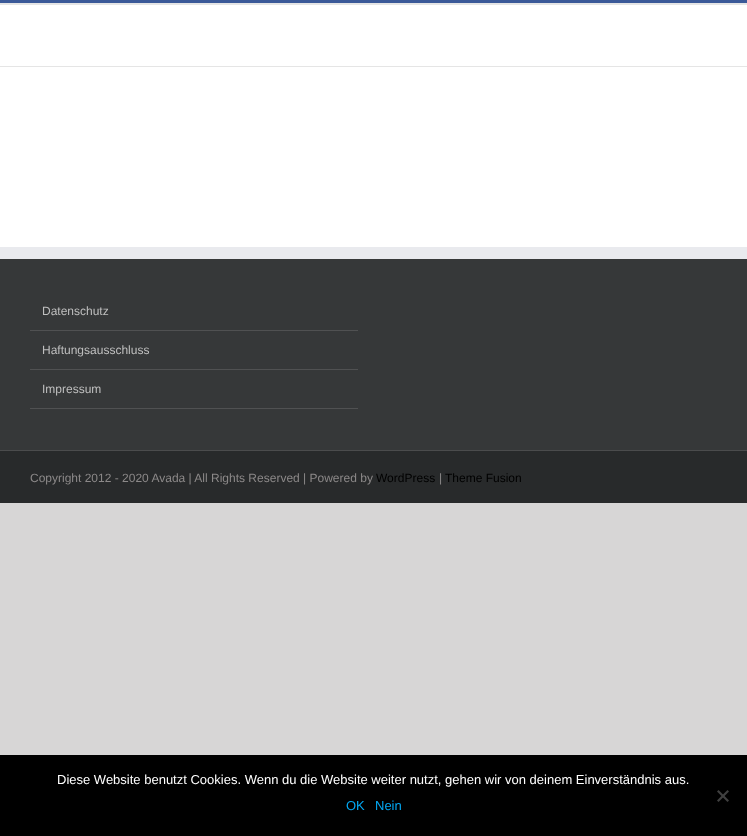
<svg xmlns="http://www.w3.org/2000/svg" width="747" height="836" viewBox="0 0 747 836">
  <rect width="100%" height="100%" fill="rgb(215,214,214)"/>
  <rect x="0" y="0" width="747" height="3" fill="rgb(59,89,152)"/>
  <rect x="0" y="3" width="747" height="2" fill="rgb(229,229,229)"/>
  <rect x="0" y="5" width="747" height="61" fill="rgb(255,255,255)"/>
  <rect x="0" y="66" width="747" height="1" fill="rgb(229,229,229)"/>
  <rect x="0" y="67" width="747" height="180" fill="rgb(255,255,255)"/>
  <rect x="0" y="259" width="747" height="191" fill="rgb(54,56,57)"/>
  <rect x="0" y="247" width="747" height="12" fill="rgb(233,234,238)"/>
  <rect x="30" y="330" width="328" height="1" fill="rgb(80,81,82)"/>
  <text x="42" y="315" font-family="Liberation Sans" font-size="12" fill="rgb(191,191,191)">Datenschutz</text>
  <rect x="30" y="369" width="328" height="1" fill="rgb(80,81,82)"/>
  <text x="42" y="354" font-family="Liberation Sans" font-size="12" fill="rgb(191,191,191)">Haftungsausschluss</text>
  <rect x="30" y="408" width="328" height="1" fill="rgb(80,81,82)"/>
  <text x="42" y="393" font-family="Liberation Sans" font-size="12" fill="rgb(191,191,191)">Impressum</text>
  <rect x="0" y="451" width="747" height="52" fill="rgb(40,42,43)"/>
  <rect x="0" y="450" width="747" height="1" fill="rgb(75,76,77)"/>
  <text x="30" y="482" font-family="Liberation Sans" font-size="12" fill="rgb(140,137,137)">Copyright 2012 - 2020 Avada | All Rights Reserved | Powered by</text>
  <text x="376" y="482" font-family="Liberation Sans" font-size="12" fill="rgb(0,0,0)">WordPress</text>
  <text x="439" y="482" font-family="Liberation Sans" font-size="12" fill="rgb(140,137,137)">|</text>
  <text x="445" y="482" font-family="Liberation Sans" font-size="12" fill="rgb(0,0,0)">Theme Fusion</text>
  <rect x="0" y="755" width="747" height="81" fill="rgb(0,0,0)"/>
  <text x="57" y="784" font-family="Liberation Sans" font-size="13" fill="rgb(255,255,255)">Diese Website benutzt Cookies. Wenn du die Website weiter nutzt, gehen wir von deinem Einverständnis aus.</text>
  <path d="M727.5 790L729 791.5L718.5 802L717 800.5Z" fill="rgb(64,64,64)"/>
  <path d="M717 791.5L718.5 790L729 800.5L727.5 802Z" fill="rgb(64,64,64)"/>
  <g font-family="Liberation Sans" font-size="13" fill="rgb(3,169,244)">
    <text x="346" y="810">OK</text>
    <text x="375" y="810">Nein</text>
  </g>
</svg>
